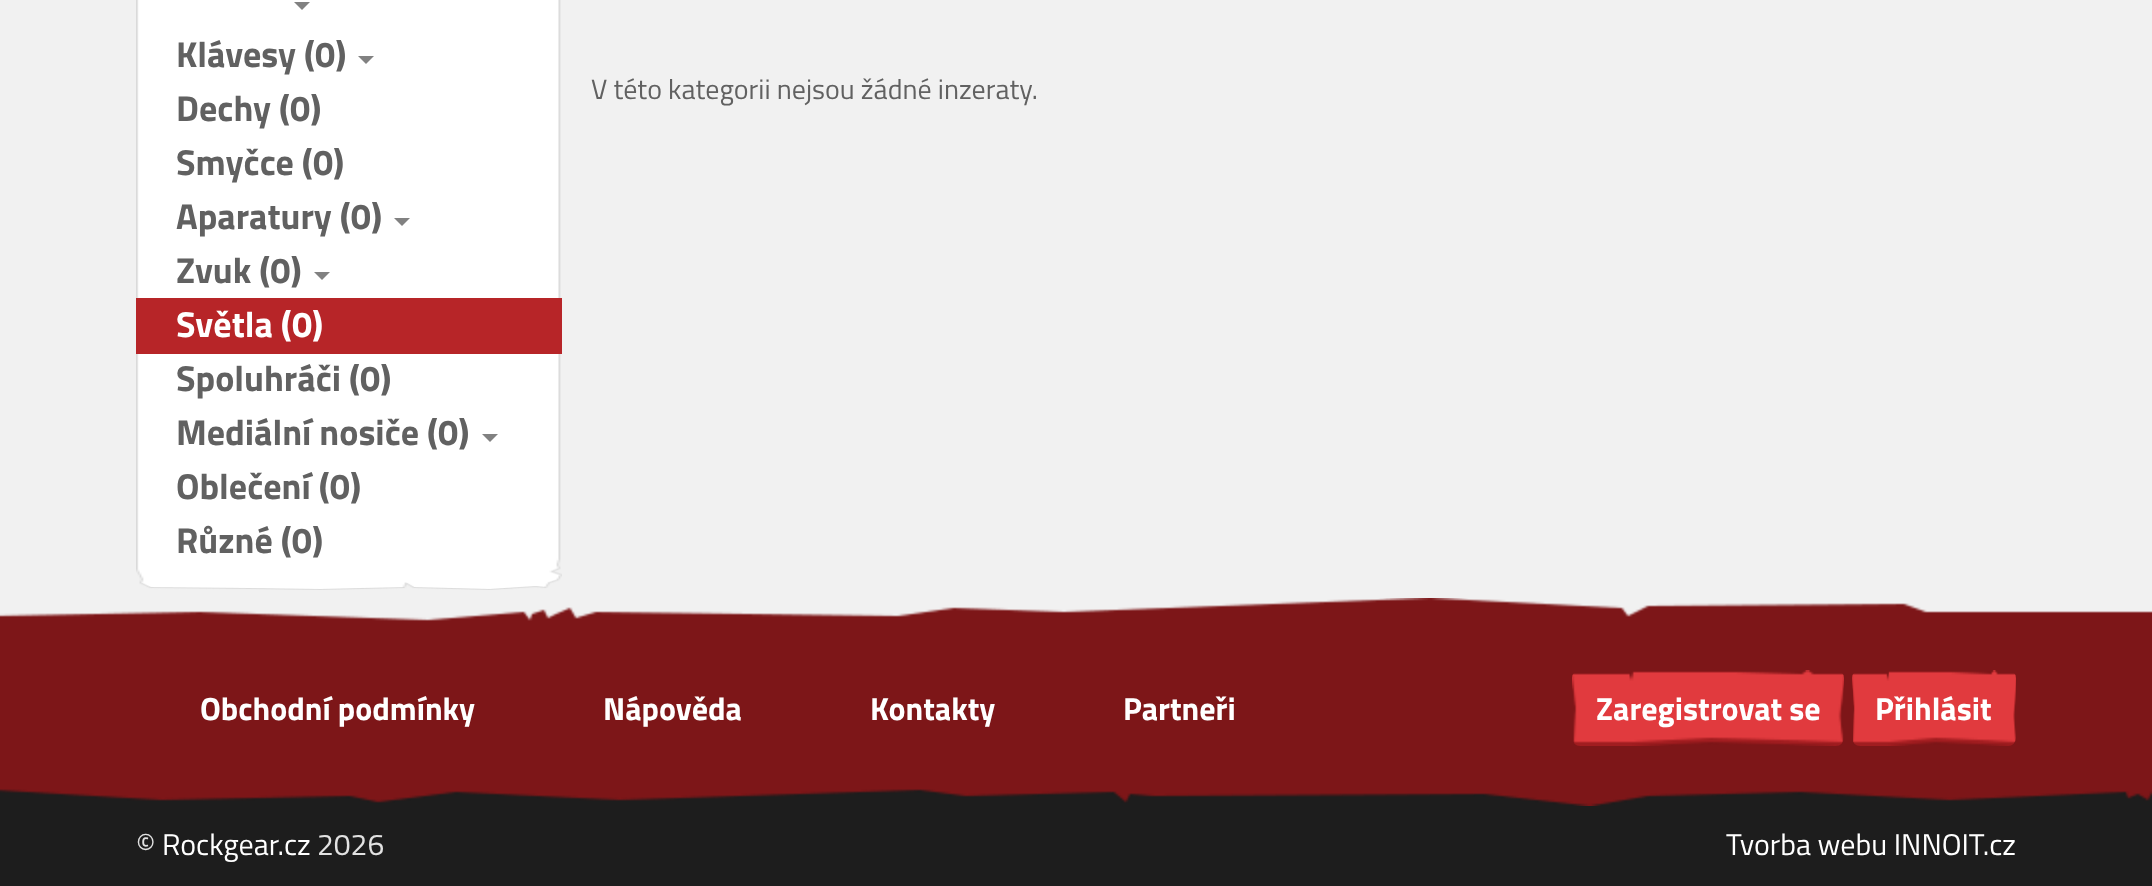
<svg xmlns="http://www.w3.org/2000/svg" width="2152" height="886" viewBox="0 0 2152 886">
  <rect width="100%" height="100%" fill="rgb(241,241,241)"/>
  <image x="136" y="0" width="426" height="590" href="pic1.png"/>
  <path d="M294 2H310L302 10Z" fill="rgb(129,129,129)"/>
  <text x="176" y="67" font-family="Titillium Web" font-size="36" font-weight="bold" fill="rgb(97,97,97)">Klávesy (0)</text>
  <path d="M358 56H374L366 64Z" fill="rgb(129,129,129)"/>
  <g font-family="Titillium Web" font-size="36" font-weight="bold" fill="rgb(97,97,97)">
    <text>
      <tspan x="176" y="121">Dechy (0)</tspan>
      <tspan x="176" y="175">Smyčce (0)</tspan>
      <tspan x="176" y="229">Aparatury (0)</tspan>
    </text>
  </g>
  <path d="M394 218H410L402 226Z" fill="rgb(129,129,129)"/>
  <text x="176" y="283" font-family="Titillium Web" font-size="36" font-weight="bold" fill="rgb(97,97,97)">Zvuk (0)</text>
  <path d="M314 272H330L322 280Z" fill="rgb(129,129,129)"/>
  <rect x="136" y="298" width="426" height="56" fill="rgb(183,37,40)"/>
  <text x="176" y="337" font-family="Titillium Web" font-size="36" font-weight="bold" fill="rgb(255,255,255)">Světla (0)</text>
  <g font-family="Titillium Web" font-size="36" font-weight="bold" fill="rgb(97,97,97)">
    <text>
      <tspan x="176" y="391">Spoluhráči (0)</tspan>
      <tspan x="176" y="445">Mediální nosiče (0)</tspan>
    </text>
  </g>
  <path d="M482 434H498L490 442Z" fill="rgb(129,129,129)"/>
  <g font-family="Titillium Web" font-size="36" font-weight="bold" fill="rgb(97,97,97)">
    <text>
      <tspan x="176" y="499">Oblečení (0)</tspan>
      <tspan x="176" y="553">Různé (0)</tspan>
    </text>
  </g>
  <text x="591" y="99" font-family="Titillium Web" font-size="28" fill="rgb(97,97,97)">V této kategorii nejsou žádné inzeraty.</text>
  <rect x="0" y="630" width="2152" height="176" fill="rgb(125,22,24)"/>
  <image x="0" y="598" width="2152" height="32" href="pic2.png"/>
  <g font-family="Titillium Web" font-size="32" font-weight="bold" fill="rgb(255,255,255)">
    <text x="200" y="720">Obchodní podmínky</text>
    <text x="603" y="720">Nápověda</text>
    <text x="870" y="720">Kontakty</text>
    <text x="1123" y="720">Partneři</text>
  </g>
  <image x="1572" y="670" width="272" height="76" href="pic3.png"/>
  <text x="1596" y="720" font-family="Titillium Web" font-size="32" font-weight="bold" fill="rgb(255,255,255)">Zaregistrovat se</text>
  <image x="1852" y="670" width="164" height="76" href="pic4.png"/>
  <text x="1875" y="720" font-family="Titillium Web" font-size="32" font-weight="bold" fill="rgb(255,255,255)">Přihlásit</text>
  <rect x="0" y="806" width="2152" height="80" fill="rgb(29,29,29)"/>
  <image x="0" y="789" width="2152" height="17" href="pic5.png"/>
  <text x="136" y="855" font-family="Titillium Web" font-size="30" fill="rgb(226,226,226)">©</text>
  <text x="162" y="855" font-family="Titillium Web" font-size="30" fill="rgb(255,255,255)">Rockgear.cz</text>
  <text x="317" y="855" font-family="Titillium Web" font-size="30" fill="rgb(226,226,226)">2026</text>
  <text x="1726" y="855" font-family="Titillium Web" font-size="30" fill="rgb(255,255,255)">Tvorba webu INNOIT.cz</text>
</svg>
